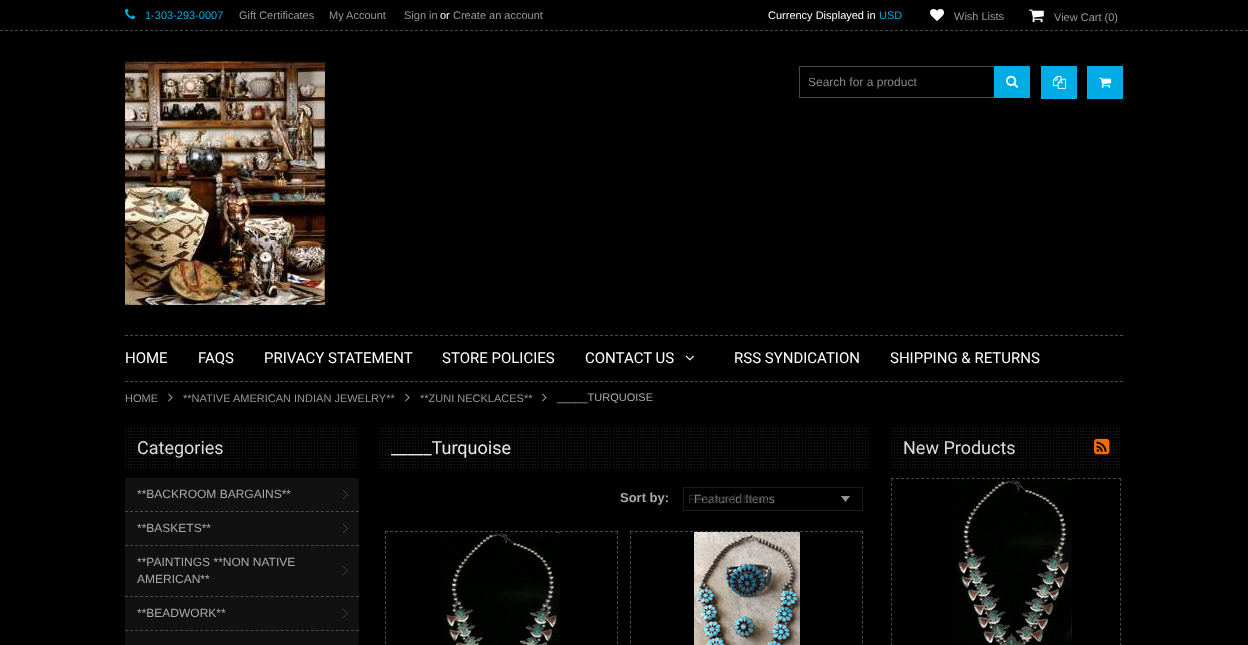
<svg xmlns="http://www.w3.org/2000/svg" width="1248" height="645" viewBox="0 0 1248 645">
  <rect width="100%" height="100%" fill="rgb(0,0,0)"/>
  <path d="M0 30.5H1248" fill="none" stroke="rgb(74,74,74)" stroke-dasharray="3 2"/>
  <image x="125" y="8" width="11" height="11" href="pic1.png"/>
  <text x="145" y="19" font-family="Liberation Sans" font-size="11" fill="rgb(0,172,228)">1-303-293-0007</text>
  <g font-family="Liberation Sans" font-size="11" fill="rgb(153,153,153)">
    <text x="239" y="19">Gift Certificates</text>
    <text x="329" y="19">My Account</text>
    <text x="404" y="19">Sign in</text>
  </g>
  <text x="440" y="19" font-family="Liberation Sans" font-size="11" fill="rgb(255,255,255)">or</text>
  <text x="453" y="19" font-family="Liberation Sans" font-size="11" fill="rgb(153,153,153)">Create an account</text>
  <text x="768" y="19" font-family="Liberation Sans" font-size="11" fill="rgb(255,255,255)">Currency Displayed in</text>
  <text x="879" y="19" font-family="Liberation Sans" font-size="11" fill="rgb(0,172,228)">USD</text>
  <image x="930" y="9" width="14" height="12" href="pic2.png"/>
  <text x="954" y="20" font-family="Liberation Sans" font-size="11" fill="rgb(153,153,153)">Wish Lists</text>
  <image x="1029" y="9" width="15" height="14" href="pic3.png"/>
  <text x="1054" y="21" font-family="Liberation Sans" font-size="11" fill="rgb(153,153,153)">View Cart (0)</text>
  <image x="125" y="61" width="200" height="244" href="pic4.png"/>
  <rect x="799.5" y="66.5" width="196" height="31" fill="none" stroke="rgb(74,74,74)"/>
  <text x="808" y="86" font-family="Liberation Sans" font-size="12" fill="rgb(136,136,136)">Search for a product</text>
  <rect x="994" y="66" width="36" height="32" fill="rgb(0,172,228)"/>
  <image x="1006" y="75" width="12" height="13" href="pic5.png"/>
  <rect x="1041" y="66" width="36" height="33" fill="rgb(0,172,228)"/>
  <image x="1053" y="75" width="13" height="14" href="pic6.png"/>
  <rect x="1087" y="66" width="36" height="33" fill="rgb(0,172,228)"/>
  <image x="1099" y="77" width="13" height="11" href="pic7.png"/>
  <path d="M125 335.5H1123" fill="none" stroke="rgb(74,74,74)" stroke-dasharray="3 2"/>
  <path d="M125 381.5H1123" fill="none" stroke="rgb(74,74,74)" stroke-dasharray="3 2"/>
  <g font-family="Roboto" font-size="15" fill="rgb(255,255,255)">
    <text x="125" y="363">HOME</text>
    <text x="198" y="363">FAQS</text>
    <text x="264" y="363">PRIVACY STATEMENT</text>
    <text x="442" y="363">STORE POLICIES</text>
    <text x="585" y="363">CONTACT US</text>
  </g>
  <image x="685" y="355" width="9" height="6" href="pic8.png"/>
  <g font-family="Roboto" font-size="15" fill="rgb(255,255,255)">
    <text x="734" y="363">RSS SYNDICATION</text>
    <text x="890" y="363">SHIPPING &amp; RETURNS</text>
  </g>
  <text x="125" y="402" font-family="Liberation Sans" font-size="11" fill="rgb(153,153,153)">HOME</text>
  <image x="168" y="393" width="5" height="9" href="pic9.png"/>
  <text x="183" y="402" font-family="Liberation Sans" font-size="11" fill="rgb(153,153,153)">**NATIVE AMERICAN INDIAN JEWELRY**</text>
  <image x="405" y="393" width="5" height="9" href="pic9.png"/>
  <text x="420" y="402" font-family="Liberation Sans" font-size="11" fill="rgb(153,153,153)">**ZUNI NECKLACES**</text>
  <image x="542" y="393" width="5" height="9" href="pic9.png"/>
  <text x="557" y="401" font-family="Liberation Sans" font-size="11" fill="rgb(171,171,171)">_____TURQUOISE</text>
  <image x="125" y="428" width="232" height="40" href="pic10.png"/>
  <text x="137" y="454" font-family="Roboto" font-size="18" fill="rgb(221,221,221)">Categories</text>
  <rect x="125" y="478" width="234" height="167" fill="rgb(17,17,17)"/>
  <image x="343" y="490" width="5" height="9" href="pic11.png"/>
  <text x="137" y="498" font-family="Liberation Sans" font-size="12" fill="rgb(171,171,171)">**BACKROOM BARGAINS**</text>
  <path d="M125 511.5H359" fill="none" stroke="rgb(74,74,74)" stroke-dasharray="3 2.02"/>
  <image x="343" y="524" width="5" height="9" href="pic11.png"/>
  <text x="137" y="532" font-family="Liberation Sans" font-size="12" fill="rgb(171,171,171)">**BASKETS**</text>
  <path d="M125 545.5H359" fill="none" stroke="rgb(74,74,74)" stroke-dasharray="3 2.02"/>
  <image x="343" y="566" width="5" height="9" href="pic11.png"/>
  <g font-family="Liberation Sans" font-size="12" fill="rgb(171,171,171)">
    <text>
      <tspan x="137" y="566">**PAINTINGS **NON NATIVE</tspan>
      <tspan x="137" y="583">AMERICAN**</tspan>
    </text>
  </g>
  <path d="M125 596.5H359" fill="none" stroke="rgb(74,74,74)" stroke-dasharray="3 2.02"/>
  <image x="343" y="609" width="5" height="9" href="pic11.png"/>
  <text x="137" y="617" font-family="Liberation Sans" font-size="12" fill="rgb(171,171,171)">**BEADWORK**</text>
  <path d="M125 630.5H359" fill="none" stroke="rgb(74,74,74)" stroke-dasharray="3 2.02"/>
  <image x="379" y="428" width="490" height="40" href="pic12.png"/>
  <text x="391" y="454" font-family="Roboto" font-size="18" fill="rgb(234,234,234)">_____Turquoise</text>
  <text x="620" y="502" font-family="Liberation Sans" font-size="13" font-weight="bold" fill="rgb(171,171,171)">Sort by:</text>
  <rect x="683.5" y="487.5" width="179" height="23" fill="none" stroke="rgb(27,27,27)"/>
  <image x="841" y="496" width="9" height="6" href="pic13.png"/>
  <path d="M850 496.5L854 500.5L858 496.5" fill="none" stroke="rgb(0,0,0)" stroke-width="2"/>
  <text x="694" y="503" font-family="Liberation Sans" font-size="12" fill="rgb(136,136,136)">Featured Items</text>
  <text x="688" y="503" font-family="Liberation Sans" font-size="12" fill="rgb(43,43,43)">Featured Items</text>
  <path d="M385 531.5H618" fill="none" stroke="rgb(74,74,74)" stroke-dasharray="3 2"/>
  <path d="M617.5 531V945" fill="none" stroke="rgb(74,74,74)" stroke-dasharray="3 2.01"/>
  <path d="M385.5 531V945" fill="none" stroke="rgb(74,74,74)" stroke-dasharray="3 2.01"/>
  <image x="443" y="532" width="117" height="113" href="pic14.png"/>
  <path d="M630 531.5H863" fill="none" stroke="rgb(74,74,74)" stroke-dasharray="3 2"/>
  <path d="M862.5 531V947" fill="none" stroke="rgb(74,74,74)" stroke-dasharray="3 1.98"/>
  <path d="M630.5 531V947" fill="none" stroke="rgb(74,74,74)" stroke-dasharray="3 1.98"/>
  <image x="694" y="532" width="106" height="113" href="pic15.png"/>
  <image x="891" y="428" width="229" height="40" href="pic16.png"/>
  <text x="903" y="454" font-family="Roboto" font-size="18" fill="rgb(221,221,221)">New Products</text>
  <image x="1094" y="438" width="16" height="17" href="pic17.png"/>
  <path d="M891 478.5H1121" fill="none" stroke="rgb(74,74,74)" stroke-dasharray="3 2.04"/>
  <path d="M1120.5 478V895" fill="none" stroke="rgb(74,74,74)" stroke-dasharray="3 1.99"/>
  <path d="M891.5 478V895" fill="none" stroke="rgb(74,74,74)" stroke-dasharray="3 1.99"/>
  <image x="955" y="479" width="117" height="166" href="pic18.png"/>
</svg>
